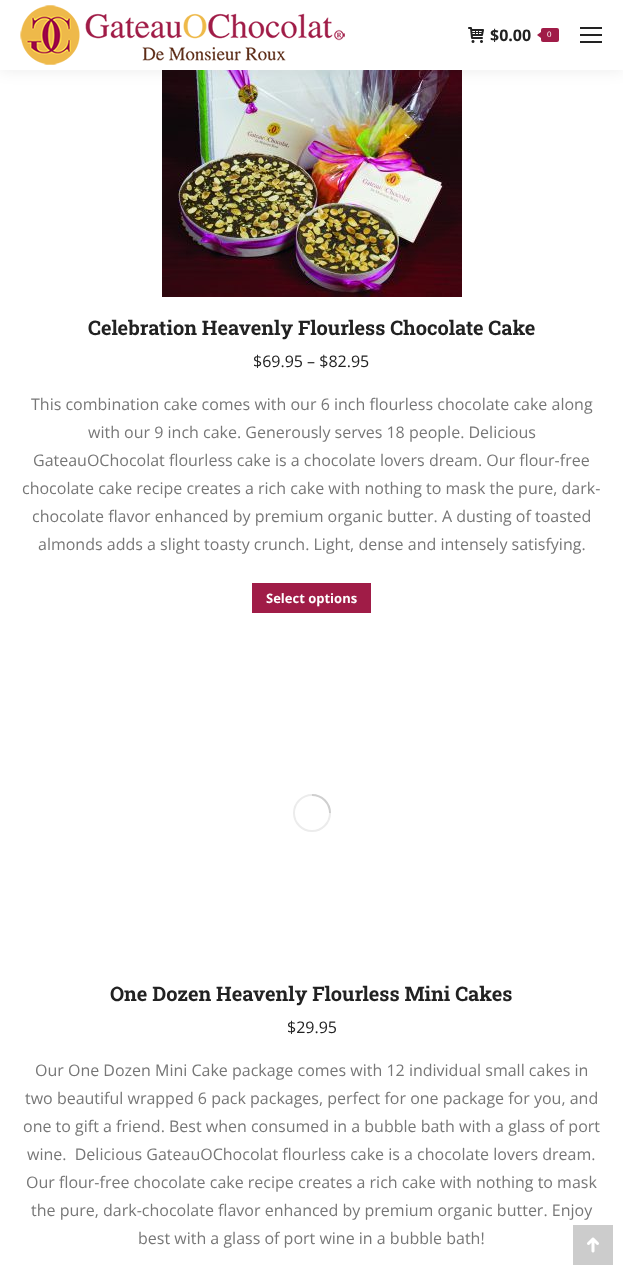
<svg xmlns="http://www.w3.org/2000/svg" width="623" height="1275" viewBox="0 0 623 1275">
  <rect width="100%" height="100%" fill="rgb(255,255,255)"/>
  <image x="162" y="70" width="300" height="227" href="pic3.png"/>
  <rect x="-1" y="-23" width="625" height="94" fill="rgba(0,0,0,0.07)" filter="blur(7.5px)"/>
  <rect x="0" y="0" width="623" height="70" fill="rgb(255,255,255)"/>
  <image x="20" y="5" width="325" height="60" href="pic1.png"/>
  <image x="468" y="27" width="16" height="16" href="pic2.png"/>
  <text x="490" y="41" font-family="Open Sans" font-size="16" font-weight="bold" fill="rgb(34,34,34)">$0.00</text>
  <rect x="541" y="28" width="18" height="14" rx="2" fill="rgb(160,28,71)"/>
  <path d="M541 32V38L537 35Z" fill="rgb(160,28,71)"/>
  <text x="547" y="37" font-family="Liberation Sans" font-size="8" fill="rgb(255,255,255)">0</text>
  <rect x="580" y="27" width="22" height="2" fill="rgb(34,34,34)"/>
  <rect x="580" y="34" width="22" height="2" fill="rgb(34,34,34)"/>
  <rect x="580" y="41" width="22" height="2" fill="rgb(34,34,34)"/>
  <text x="88" y="335" font-family="Roboto Slab" font-size="20" font-weight="bold" fill="rgb(34,34,34)">Celebration Heavenly Flourless Chocolate Cake</text>
  <text x="253" y="367" font-family="Open Sans" font-size="16" fill="rgb(34,34,34)">$69.95 – $82.95</text>
  <g font-family="Open Sans" font-size="16" fill="rgb(119,119,119)">
    <text x="31" y="410">This combination cake comes with our 6 inch flourless chocolate cake along</text>
    <text x="88" y="438">with our 9 inch cake. Generously serves 18 people. Delicious</text>
    <text x="33" y="466">GateauOChocolat flourless cake is a chocolate lovers dream. Our flour-free</text>
    <text x="22" y="494">chocolate cake recipe creates a rich cake with nothing to mask the pure, dark-</text>
    <text x="32" y="522">chocolate flavor enhanced by premium organic butter. A dusting of toasted</text>
    <text x="38" y="550">almonds adds a slight toasty crunch. Light, dense and intensely satisfying.</text>
  </g>
  <rect x="252" y="583" width="119" height="30" fill="rgb(160,28,71)"/>
  <text x="266" y="603" font-family="Open Sans" font-size="13" font-weight="bold" fill="rgb(255,255,255)">Select options</text>
  <circle cx="312" cy="813" r="18" fill="none" stroke="rgb(236,236,236)" stroke-width="2"/>
  <path d="M330 813C330 803 322 795 312 795" fill="none" stroke="rgba(119,119,119,0.25)" stroke-width="2"/>
  <text x="110" y="1001" font-family="Roboto Slab" font-size="20" font-weight="bold" fill="rgb(34,34,34)">One Dozen Heavenly Flourless Mini Cakes</text>
  <text x="287" y="1033" font-family="Open Sans" font-size="16" fill="rgb(34,34,34)">$29.95</text>
  <g font-family="Open Sans" font-size="16" fill="rgb(119,119,119)">
    <text x="35" y="1076">Our One Dozen Mini Cake package comes with 12 individual small cakes in</text>
    <text x="25" y="1104">two beautiful wrapped 6 pack packages, perfect for one package for you, and</text>
    <text x="23" y="1132">one to gift a friend. Best when consumed in a bubble bath with a glass of port</text>
    <text x="27" y="1160" xml:space="preserve">wine.  Delicious GateauOChocolat flourless cake is a chocolate lovers dream.</text>
    <text x="26" y="1188">Our flour-free chocolate cake recipe creates a rich cake with nothing to mask</text>
    <text x="31" y="1216">the pure, dark-chocolate flavor enhanced by premium organic butter. Enjoy</text>
    <text x="138" y="1244">best with a glass of port wine in a bubble bath!</text>
  </g>
  <rect x="573" y="1225" width="40" height="40" fill="rgb(204,204,204)"/>
  <image x="587" y="1237" width="12" height="16" href="pic4.png"/>
</svg>
